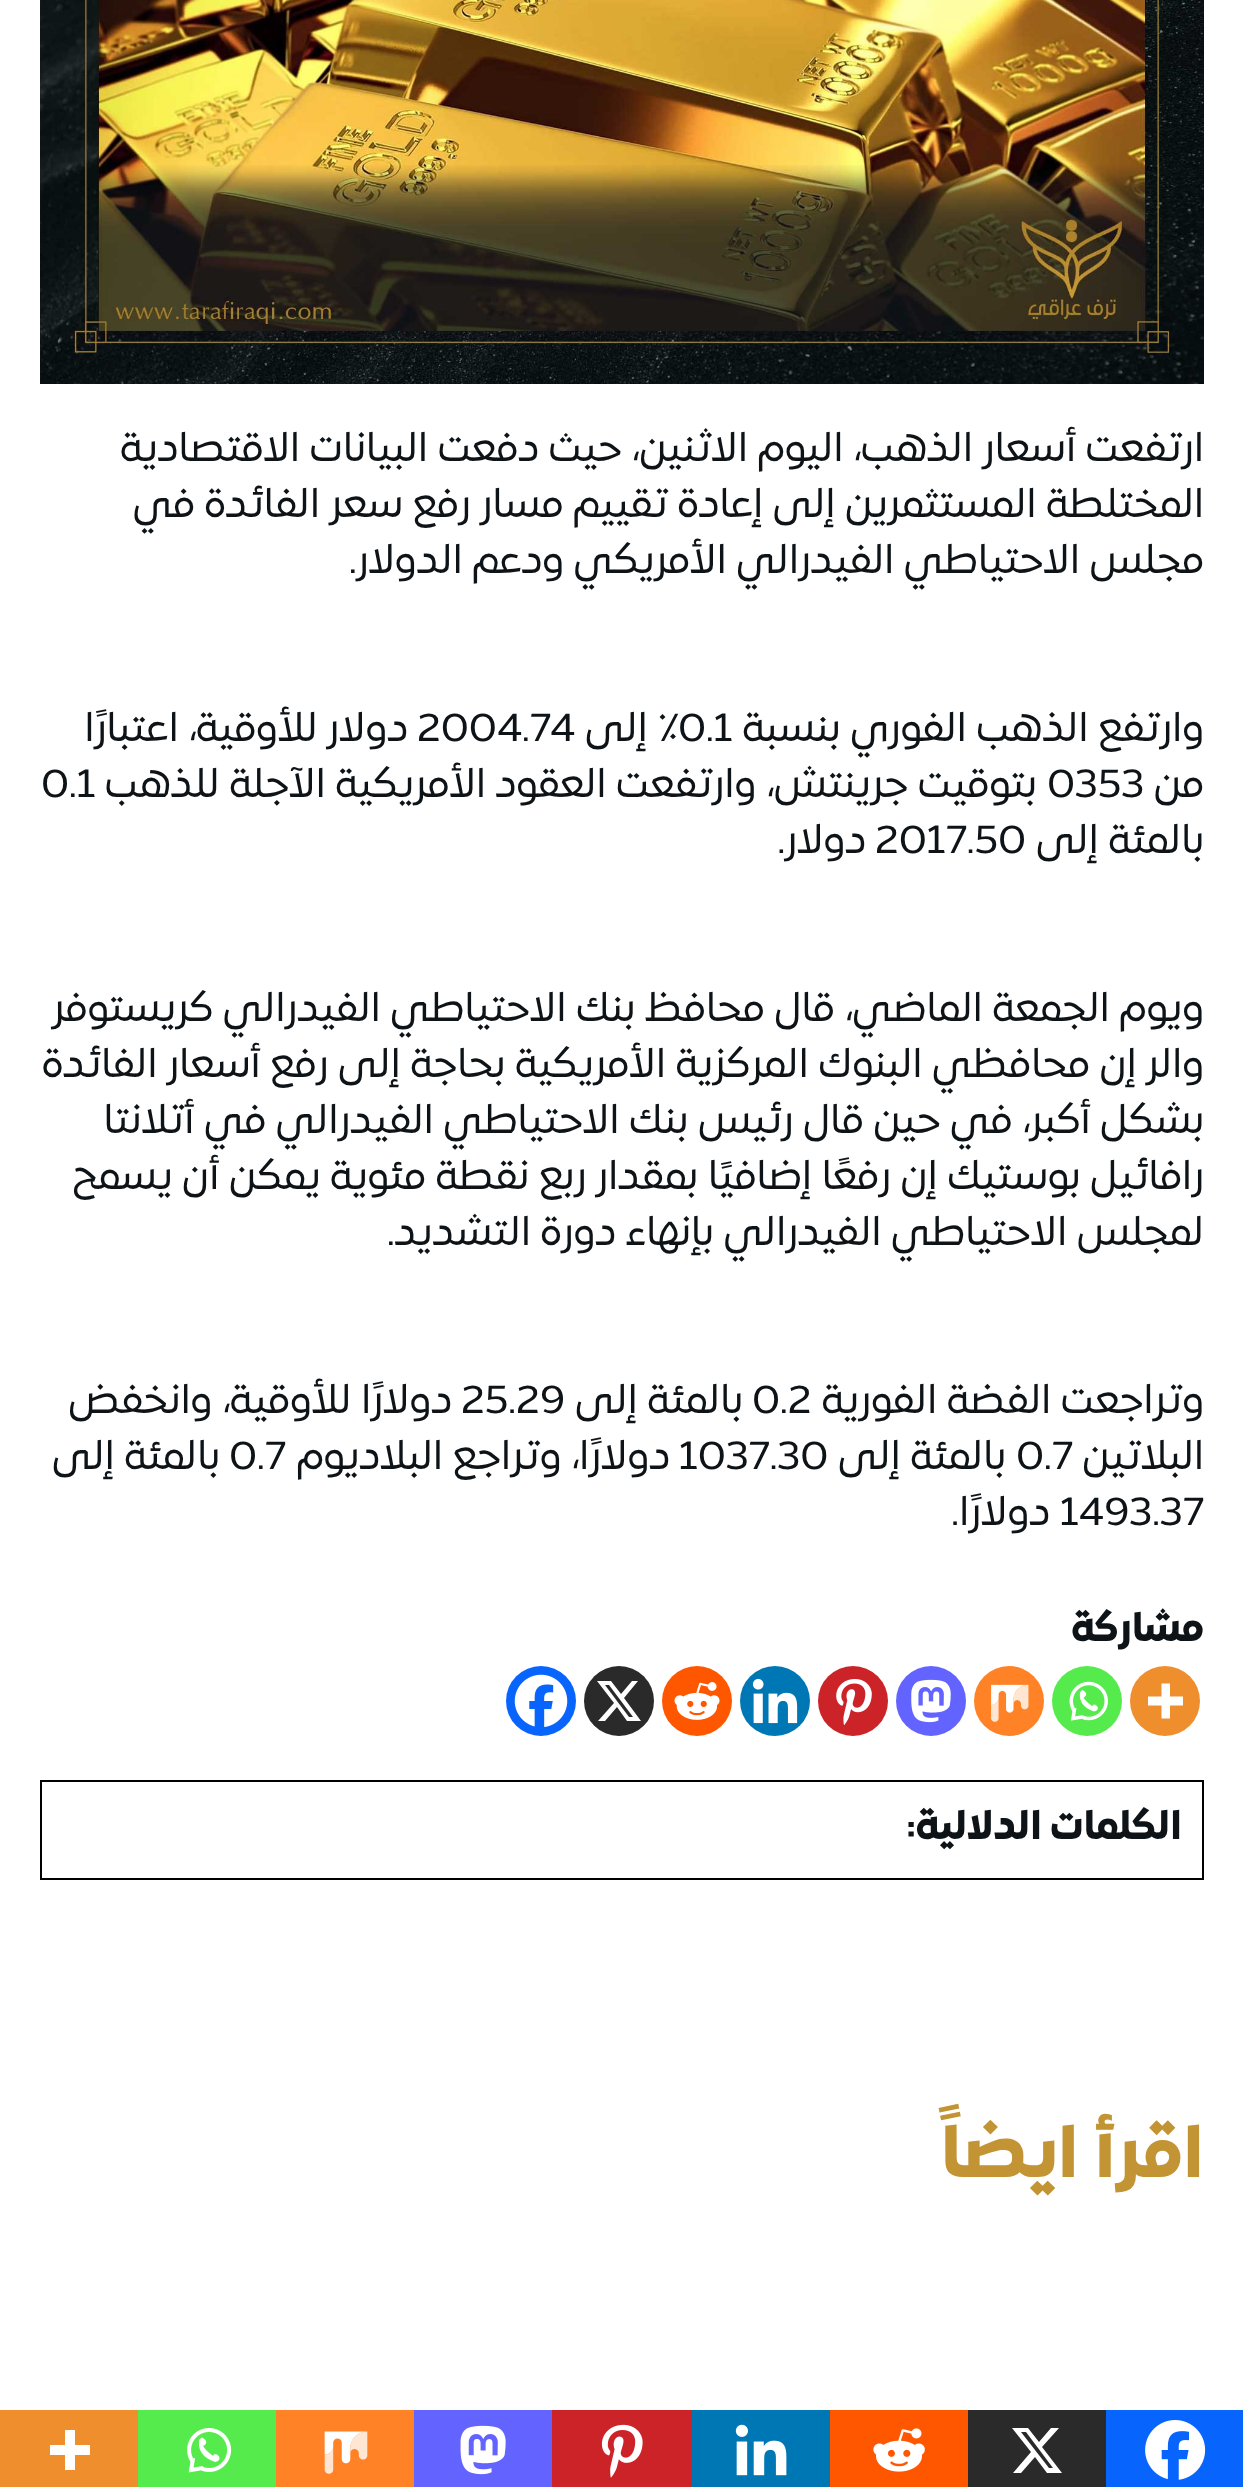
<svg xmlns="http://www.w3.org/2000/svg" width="1243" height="2487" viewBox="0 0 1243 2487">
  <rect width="100%" height="100%" fill="rgb(255,255,255)"/>
  <image x="40" y="0" width="1164" height="384" href="pic1.png"/>
  <g font-family="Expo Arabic" font-size="40" direction="rtl" fill="rgb(13,19,23)">
    <text>
      <tspan x="1204" y="461">ارتفعت أسعار الذهب، اليوم الاثنين، حيث دفعت البيانات الاقتصادية</tspan>
      <tspan x="1204" y="517">المختلطة المستثمرين إلى إعادة تقييم مسار رفع سعر الفائدة في</tspan>
      <tspan x="1204" y="573">مجلس الاحتياطي الفيدرالي الأمريكي ودعم الدولار.</tspan>
    </text>
    <text x="1204" y="741">وارتفع الذهب الفوري بنسبة</text>
  </g>
  <text x="678" y="741" font-family="Expo Arabic" font-size="40" fill="rgb(13,19,23)">0.1</text>
  <text x="678" y="741" font-family="Expo Arabic" font-size="40" direction="rtl" fill="rgb(13,19,23)">٪ إلى</text>
  <text x="417" y="741" font-family="Expo Arabic" font-size="40" fill="rgb(13,19,23)">2004.74</text>
  <g font-family="Expo Arabic" font-size="40" direction="rtl" fill="rgb(13,19,23)">
    <text x="408" y="741">دولار للأوقية، اعتبارًا</text>
    <text x="1204" y="797">من</text>
  </g>
  <text x="1047" y="797" font-family="Expo Arabic" font-size="40" fill="rgb(13,19,23)">0353</text>
  <text x="1037" y="797" font-family="Expo Arabic" font-size="40" direction="rtl" fill="rgb(13,19,23)">بتوقيت جرينتش، وارتفعت العقود الأمريكية الآجلة للذهب</text>
  <text x="41" y="797" font-family="Expo Arabic" font-size="40" fill="rgb(13,19,23)">0.1</text>
  <text x="1204" y="853" font-family="Expo Arabic" font-size="40" direction="rtl" fill="rgb(13,19,23)">بالمئة إلى</text>
  <text x="875" y="853" font-family="Expo Arabic" font-size="40" fill="rgb(13,19,23)">2017.50</text>
  <g font-family="Expo Arabic" font-size="40" direction="rtl" fill="rgb(13,19,23)">
    <text x="866" y="853">دولار.</text>
    <text>
      <tspan x="1204" y="1021">ويوم الجمعة الماضي، قال محافظ بنك الاحتياطي الفيدرالي كريستوفر</tspan>
      <tspan x="1204" y="1077">والر إن محافظي البنوك المركزية الأمريكية بحاجة إلى رفع أسعار الفائدة</tspan>
      <tspan x="1204" y="1133">بشكل أكبر، في حين قال رئيس بنك الاحتياطي الفيدرالي في أتلانتا</tspan>
      <tspan x="1204" y="1189">رافائيل بوستيك إن رفعًا إضافيًا بمقدار ربع نقطة مئوية يمكن أن يسمح</tspan>
      <tspan x="1204" y="1245">لمجلس الاحتياطي الفيدرالي بإنهاء دورة التشديد.</tspan>
    </text>
    <text x="1204" y="1413">وتراجعت الفضة الفورية</text>
  </g>
  <text x="752" y="1413" font-family="Expo Arabic" font-size="40" fill="rgb(13,19,23)">0.2</text>
  <text x="743" y="1413" font-family="Expo Arabic" font-size="40" direction="rtl" fill="rgb(13,19,23)">بالمئة إلى</text>
  <text x="461" y="1413" font-family="Expo Arabic" font-size="40" fill="rgb(13,19,23)">25.29</text>
  <g font-family="Expo Arabic" font-size="40" direction="rtl" fill="rgb(13,19,23)">
    <text x="452" y="1413">دولارًا للأوقية، وانخفض</text>
    <text x="1204" y="1469">البلاتين</text>
  </g>
  <text x="1016" y="1469" font-family="Expo Arabic" font-size="40" fill="rgb(13,19,23)">0.7</text>
  <text x="1006" y="1469" font-family="Expo Arabic" font-size="40" direction="rtl" fill="rgb(13,19,23)">بالمئة إلى</text>
  <text x="679" y="1469" font-family="Expo Arabic" font-size="40" fill="rgb(13,19,23)">1037.30</text>
  <text x="670" y="1469" font-family="Expo Arabic" font-size="40" direction="rtl" fill="rgb(13,19,23)">دولارًا، وتراجع البلاديوم</text>
  <text x="229" y="1469" font-family="Expo Arabic" font-size="40" fill="rgb(13,19,23)">0.7</text>
  <text x="220" y="1469" font-family="Expo Arabic" font-size="40" direction="rtl" fill="rgb(13,19,23)">بالمئة إلى</text>
  <text x="1060" y="1525" font-family="Expo Arabic" font-size="40" fill="rgb(13,19,23)">1493.37</text>
  <text x="1050" y="1525" font-family="Expo Arabic" font-size="40" direction="rtl" fill="rgb(13,19,23)">دولارًا.</text>
  <text x="1204" y="1641" font-family="Expo Arabic" font-size="40" font-weight="bold" direction="rtl" fill="rgb(13,19,23)">مشاركة</text>
  <circle cx="1165" cy="1701" r="35" fill="rgb(238,142,45)"/>
  <path d="M1170 1696.5V1683.5H1161.5V1696.5H1148V1705.5H1161.5V1718.5H1170V1705.5H1183V1696.5Z" fill="rgb(255,255,255)" fill-rule="evenodd"/>
  <circle cx="1087" cy="1701" r="35" fill="rgb(85,235,76)"/>
  <image x="1069" y="1681" width="39" height="40" href="pic2.png"/>
  <circle cx="1009" cy="1701" r="35" fill="rgb(255,130,38)"/>
  <image x="991" y="1684" width="38" height="38" href="pic3.png"/>
  <circle cx="931" cy="1701" r="35" fill="rgb(99,100,255)"/>
  <image x="911" y="1679" width="40" height="44" href="pic4.png"/>
  <circle cx="853" cy="1701" r="35" fill="rgb(204,35,41)"/>
  <image x="836" y="1679" width="36" height="46" href="pic5.png"/>
  <circle cx="775" cy="1701" r="35" fill="rgb(0,119,181)"/>
  <image x="752" y="1678" width="46" height="46" href="pic6.png"/>
  <circle cx="697" cy="1701" r="35" fill="rgb(255,87,0)"/>
  <image x="674" y="1682" width="46" height="38" href="pic7.png"/>
  <circle cx="619" cy="1701" r="35" fill="rgb(42,42,42)"/>
  <path d="M632 1681H638L624 1698L641 1721H627L617 1707L605 1721H598L614 1703L597 1681H611L621 1694ZM629 1717H633L609 1685H605Z" fill="rgb(255,255,255)"/>
  <circle cx="541" cy="1701" r="35" fill="rgb(7,101,254)"/>
  <image x="514" y="1674" width="54" height="53" href="pic8.png"/>
  <rect x="41" y="1781" width="1162" height="98" fill="none" stroke="rgb(0,0,0)" stroke-width="2"/>
  <text x="1182" y="1839" font-family="Expo Arabic" font-size="40" font-weight="bold" direction="rtl" fill="rgb(13,19,23)">الكلمات الدلالية:</text>
  <rect x="1106" y="2410" width="137" height="77" fill="rgb(7,101,254)"/>
  <image x="1145" y="2420" width="61" height="60" href="pic9.png"/>
  <rect x="968" y="2410" width="138" height="77" fill="rgb(42,42,42)"/>
  <path d="M1051 2428H1059L1042 2447L1062 2473H1047L1035 2457L1021 2473H1013L1031 2452L1012 2428H1028L1039 2442ZM1049 2468H1053L1026 2432H1021Z" fill="rgb(255,255,255)"/>
  <rect x="830" y="2410" width="138" height="77" fill="rgb(255,87,0)"/>
  <image x="873" y="2428" width="52" height="44" href="pic10.png"/>
  <rect x="692" y="2410" width="138" height="77" fill="rgb(0,119,181)"/>
  <image x="735" y="2424" width="52" height="52" href="pic11.png"/>
  <rect x="552" y="2410" width="140" height="77" fill="rgb(204,35,41)"/>
  <image x="601" y="2424" width="42" height="54" href="pic12.png"/>
  <rect x="414" y="2410" width="138" height="77" fill="rgb(99,100,255)"/>
  <image x="460" y="2425" width="46" height="50" href="pic13.png"/>
  <rect x="276" y="2410" width="138" height="77" fill="rgb(255,130,38)"/>
  <image x="324" y="2431" width="44" height="43" href="pic14.png"/>
  <rect x="138" y="2410" width="138" height="77" fill="rgb(85,235,76)"/>
  <image x="187" y="2428" width="45" height="45" href="pic15.png"/>
  <rect x="0" y="2410" width="138" height="77" fill="rgb(238,142,45)"/>
  <path d="M75 2445V2430H65V2445H50V2455H65V2470H75V2455H90V2445Z" fill="rgb(255,255,255)" fill-rule="evenodd"/>
  <text x="1204" y="2177" font-family="Expo Arabic" font-size="72" font-weight="bold" direction="rtl" fill="rgb(195,148,51)">اقرأ ايضاً</text>
</svg>
